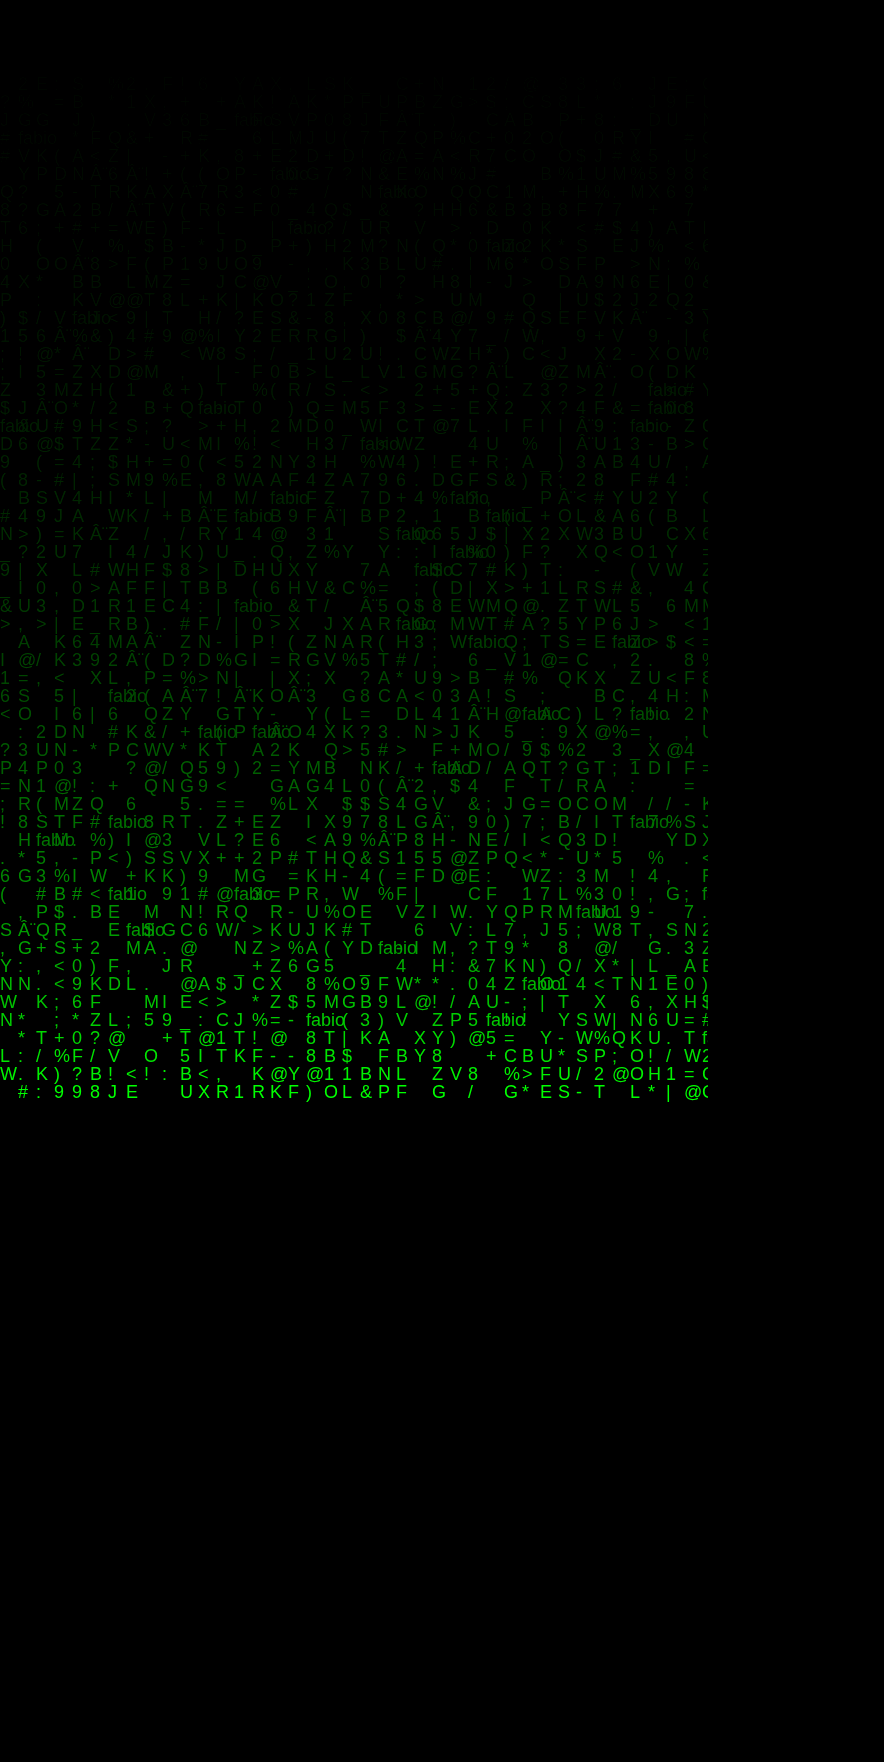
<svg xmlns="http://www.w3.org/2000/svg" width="884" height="1762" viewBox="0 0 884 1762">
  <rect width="100%" height="100%" fill="rgb(0,0,0)"/>
  <image x="0" y="77" width="708" height="1025" href="pic1.png"/>
</svg>
